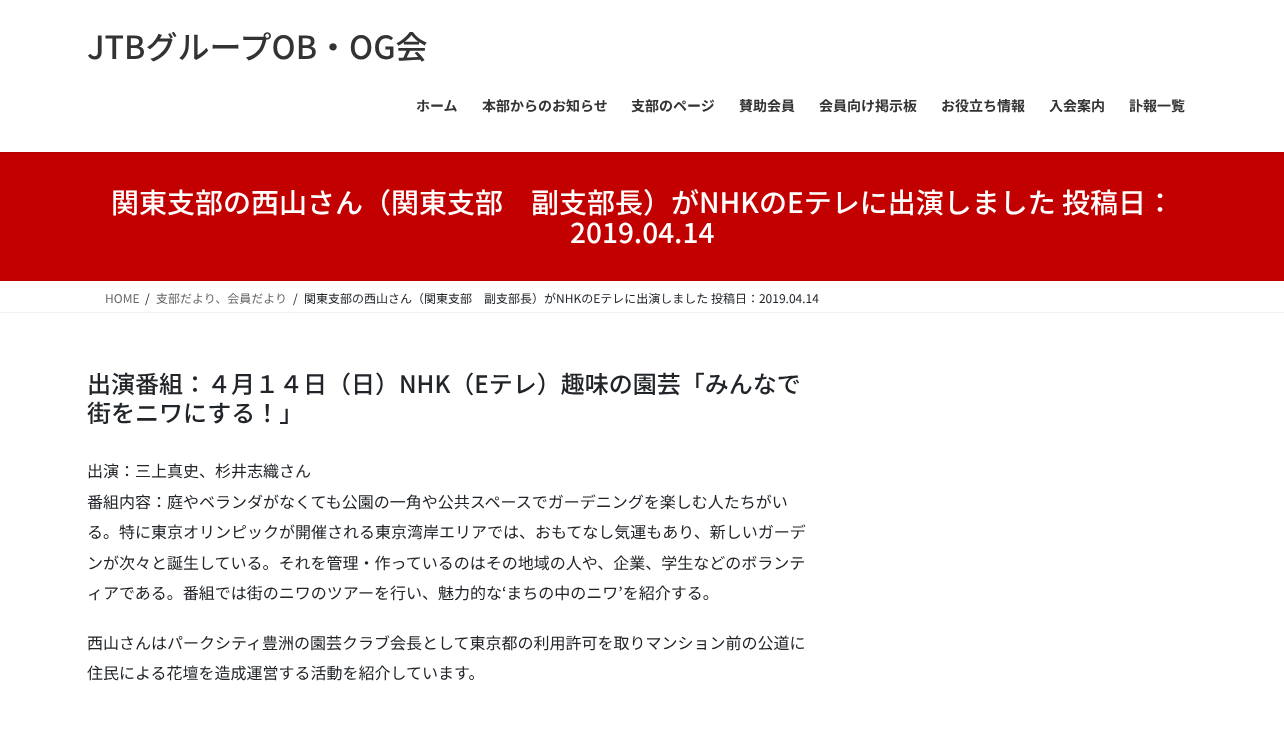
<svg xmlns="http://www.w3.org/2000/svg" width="1284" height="733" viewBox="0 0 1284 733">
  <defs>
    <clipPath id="clip1"><rect x="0" y="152" width="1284" height="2"/></clipPath>
  </defs>
  <rect width="100%" height="100%" fill="rgb(255,255,255)"/>
  <rect x="0" y="152" width="1284" height="129" fill="rgb(195,0,0)"/>
  <g clip-path="url(#clip1)">
    <rect x="0" y="1" width="1284" height="152" fill="rgba(0,0,0,0.1)" filter="blur(1.5px)"/>
  </g>
  <text x="87" y="59" font-family="Noto Sans JP" font-size="32" font-weight="500" fill="rgb(51,51,51)">JTBグループOB・OG会</text>
  <g font-family="Noto Sans JP" font-size="14" font-weight="bold" fill="rgb(51,51,51)">
    <text x="416" y="111">ホーム</text>
    <text x="482" y="111">本部からのお知らせ</text>
    <text x="631" y="111">支部のページ</text>
    <text x="739" y="111">賛助会員</text>
    <text x="819" y="111">会員向け掲示板</text>
    <text x="941" y="111">お役立ち情報</text>
    <text x="1049" y="111">入会案内</text>
    <text x="1129" y="111">訃報一覧</text>
  </g>
  <g font-family="Noto Sans JP" font-size="28" font-weight="500" fill="rgb(255,255,255)">
    <text x="111" y="213">関東支部の西山さん（関東支部　副支部長）がNHKのEテレに出演しました 投稿日：</text>
    <text x="570" y="243">2019.04.14</text>
  </g>
  <rect x="0" y="312" width="1284" height="1" fill="rgb(242,242,242)"/>
  <text x="105" y="303" font-family="Noto Sans JP" font-size="12" fill="rgb(102,102,102)">HOME</text>
  <text x="145" y="303" font-family="Noto Sans JP" font-size="12" fill="rgb(33,37,41)">/</text>
  <text x="156" y="303" font-family="Noto Sans JP" font-size="12" fill="rgb(102,102,102)">支部だより、会員だより</text>
  <g font-family="Noto Sans JP" font-size="12" fill="rgb(33,37,41)">
    <text x="293" y="303">/</text>
    <text x="304" y="303">関東支部の西山さん（関東支部　副支部長）がNHKのEテレに出演しました 投稿日：2019.04.14</text>
  </g>
  <g font-family="Noto Sans JP" font-size="24" font-weight="500" fill="rgb(33,37,41)">
    <text>
      <tspan x="87" y="393">出演番組：４月１４日（日）NHK（Eテレ）趣味の園芸「みんなで</tspan>
      <tspan x="87" y="422">街をニワにする！」</tspan>
    </text>
  </g>
  <g font-family="Noto Sans JP" font-size="16" fill="rgb(33,37,41)">
    <text>
      <tspan x="87" y="477">出演：三上真史、杉井志織さん</tspan>
      <tspan x="87" y="508">番組内容：庭やベランダがなくても公園の一角や公共スペースでガーデニングを楽しむ人たちがい</tspan>
      <tspan x="87" y="538">る。特に東京オリンピックが開催される東京湾岸エリアでは、おもてなし気運もあり、新しいガーデ</tspan>
      <tspan x="87" y="569">ンが次々と誕生している。それを管理・作っているのはその地域の人や、企業、学生などのボランテ</tspan>
      <tspan x="87" y="599">ィアである。番組では街のニワのツアーを行い、魅力的な‘まちの中のニワ’を紹介する。</tspan>
    </text>
    <text>
      <tspan x="87" y="649">西山さんはパークシティ豊洲の園芸クラブ会長として東京都の利用許可を取りマンション前の公道に</tspan>
      <tspan x="87" y="679">住民による花壇を造成運営する活動を紹介しています。</tspan>
    </text>
  </g>
</svg>
